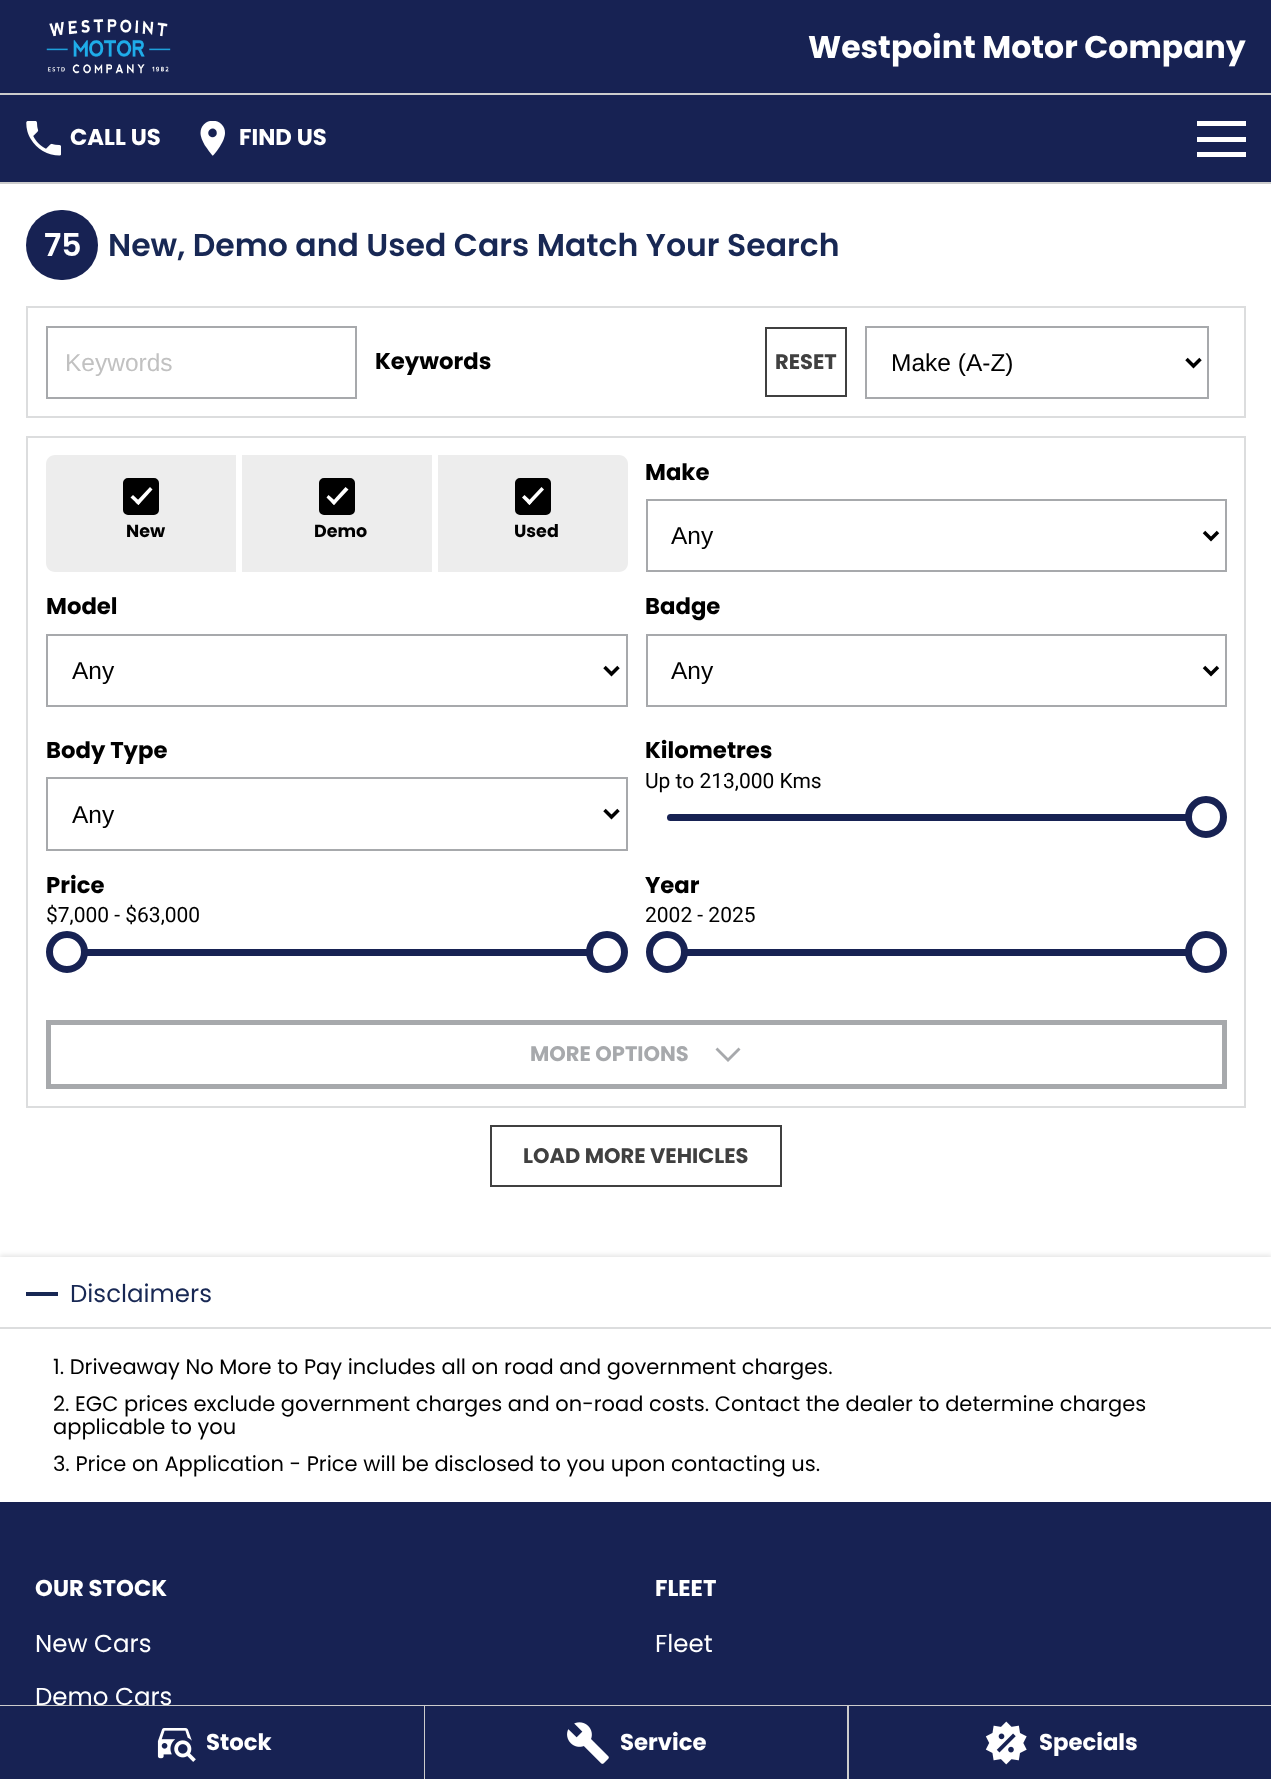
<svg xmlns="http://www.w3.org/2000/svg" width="1271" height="1779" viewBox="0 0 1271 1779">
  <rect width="100%" height="100%" fill="rgb(255,255,255)"/>
  <rect x="0" y="0" width="1271" height="93" fill="rgb(23,34,83)"/>
  <rect x="0" y="93" width="1271" height="2" fill="rgb(204,204,204)"/>
  <image x="46" y="19" width="125" height="55" href="pic1.png"/>
  <text x="808" y="58" font-family="Poppins" font-size="31.5" font-weight="bold" fill="rgb(255,255,255)">Westpoint Motor Company</text>
  <rect x="0" y="95" width="1271" height="87" fill="rgb(23,34,83)"/>
  <rect x="0" y="182" width="1271" height="2" fill="rgb(204,204,204)"/>
  <image x="26" y="121" width="35" height="35" href="pic2.png"/>
  <text x="70" y="145" font-family="Poppins" font-size="22.75" font-weight="bold" fill="rgb(255,255,255)">CALL US</text>
  <image x="200" y="121" width="25" height="35" href="pic3.png"/>
  <text x="239" y="145" font-family="Poppins" font-size="22.75" font-weight="bold" fill="rgb(255,255,255)">FIND US</text>
  <rect x="1197" y="121" width="49" height="5" fill="rgb(255,255,255)"/>
  <rect x="1197" y="137" width="49" height="5" fill="rgb(255,255,255)"/>
  <rect x="1197" y="152" width="49" height="5" fill="rgb(255,255,255)"/>
  <rect x="26" y="210" width="72" height="70" rx="35" fill="rgb(23,34,83)"/>
  <text x="44" y="256" font-family="Poppins" font-size="31.5" font-weight="600" fill="rgb(255,255,255)">75</text>
  <text x="108" y="256" font-family="Poppins" font-size="31.5" font-weight="600" fill="rgb(24,40,84)">New, Demo and Used Cars Match Your Search</text>
  <rect x="27" y="307" width="1218" height="110" fill="none" stroke="rgb(220,221,222)" stroke-width="2"/>
  <rect x="47" y="327" width="309" height="71" fill="none" stroke="rgb(167,169,172)" stroke-width="2"/>
  <text x="65" y="371" font-family="Liberation Sans" font-size="24.5" fill="rgb(193,193,193)">Keywords</text>
  <text x="375" y="369" font-family="Poppins" font-size="22.75" font-weight="bold" fill="rgb(0,0,0)">Keywords</text>
  <rect x="766" y="328" width="80" height="68" fill="none" stroke="rgb(64,64,64)" stroke-width="2"/>
  <text x="775" y="369" font-family="Poppins" font-size="21" font-weight="bold" fill="rgb(64,64,64)">RESET</text>
  <rect x="866" y="327" width="342" height="71" fill="none" stroke="rgb(167,169,172)" stroke-width="2"/>
  <path d="M1186.5 359L1193.5 366L1200.5 359" fill="none" stroke="rgb(0,0,0)" stroke-width="3.5"/>
  <text x="891" y="371" font-family="Liberation Sans" font-size="24.5" fill="rgb(0,0,0)">Make (A-Z)</text>
  <rect x="27" y="437" width="1218" height="670" fill="none" stroke="rgb(220,221,222)" stroke-width="2"/>
  <path d="M55 455H236V572H55C50 572 46 568 46 563V464C46 459 50 455 55 455Z" fill="rgb(237,237,237)"/>
  <rect x="124" y="479" width="34" height="35" rx="4" fill="rgb(0,0,0)" stroke="rgb(0,0,0)" stroke-width="2"/>
  <path d="M150 487L152.5 489.5L138.5 505L135.5 502.5Z" fill="rgb(255,255,255)"/>
  <path d="M133 495L140.5 502L138.5 505L130.5 497.5Z" fill="rgb(255,255,255)"/>
  <text x="126" y="537" font-family="Poppins" font-size="17.5" font-weight="bold" fill="rgb(0,0,0)">New</text>
  <rect x="242" y="455" width="190" height="117" fill="rgb(237,237,237)"/>
  <rect x="320" y="479" width="34" height="35" rx="4" fill="rgb(0,0,0)" stroke="rgb(0,0,0)" stroke-width="2"/>
  <path d="M345.5 487L348.5 489.5L334 505L331.5 502.5Z" fill="rgb(255,255,255)"/>
  <path d="M328.5 495L336.5 502L334 505L326.5 497.5Z" fill="rgb(255,255,255)"/>
  <text x="314" y="537" font-family="Poppins" font-size="17.5" font-weight="bold" fill="rgb(0,0,0)">Demo</text>
  <path d="M438 455H619C624 455 628 459 628 464V563C628 568 624 572 619 572H438Z" fill="rgb(237,237,237)"/>
  <rect x="516" y="479" width="34" height="35" rx="4" fill="rgb(0,0,0)" stroke="rgb(0,0,0)" stroke-width="2"/>
  <path d="M541.5 487L544 489.5L529.5 505L527 502.5Z" fill="rgb(255,255,255)"/>
  <path d="M524.5 495L532 502L529.5 505L522 497.5Z" fill="rgb(255,255,255)"/>
  <text x="514" y="537" font-family="Poppins" font-size="17.5" font-weight="bold" fill="rgb(0,0,0)">Used</text>
  <text x="645" y="480" font-family="Poppins" font-size="22.75" font-weight="bold" fill="rgb(0,0,0)">Make</text>
  <rect x="647" y="500" width="579" height="71" fill="none" stroke="rgb(167,169,172)" stroke-width="2"/>
  <path d="M1204 532L1211 539L1218 532" fill="none" stroke="rgb(0,0,0)" stroke-width="3.5"/>
  <text x="671" y="544" font-family="Liberation Sans" font-size="24.5" fill="rgb(0,0,0)">Any</text>
  <text x="46" y="614" font-family="Poppins" font-size="22.75" font-weight="bold" fill="rgb(0,0,0)">Model</text>
  <rect x="47" y="635" width="580" height="71" fill="none" stroke="rgb(167,169,172)" stroke-width="2"/>
  <path d="M604.5 667L611.5 674L618.5 667" fill="none" stroke="rgb(0,0,0)" stroke-width="3.5"/>
  <text x="72" y="679" font-family="Liberation Sans" font-size="24.5" fill="rgb(0,0,0)">Any</text>
  <text x="645" y="614" font-family="Poppins" font-size="22.75" font-weight="bold" fill="rgb(0,0,0)">Badge</text>
  <rect x="647" y="635" width="579" height="71" fill="none" stroke="rgb(167,169,172)" stroke-width="2"/>
  <path d="M1204 667L1211 674L1218 667" fill="none" stroke="rgb(0,0,0)" stroke-width="3.5"/>
  <text x="671" y="679" font-family="Liberation Sans" font-size="24.5" fill="rgb(0,0,0)">Any</text>
  <text x="46" y="758" font-family="Poppins" font-size="22.75" font-weight="bold" fill="rgb(0,0,0)">Body Type</text>
  <rect x="47" y="778" width="580" height="72" fill="none" stroke="rgb(167,169,172)" stroke-width="2"/>
  <path d="M604.5 810L611.5 817L618.5 810" fill="none" stroke="rgb(0,0,0)" stroke-width="3.5"/>
  <text x="72" y="823" font-family="Liberation Sans" font-size="24.5" fill="rgb(0,0,0)">Any</text>
  <text x="645" y="758" font-family="Poppins" font-size="22.75" font-weight="bold" fill="rgb(0,0,0)">Kilometres</text>
  <text x="645" y="788" font-family="Roboto" font-size="21" fill="rgb(0,0,0)">Up to 213,000 Kms</text>
  <rect x="667" y="814" width="539" height="7" rx="3.5" fill="rgb(23,34,83)"/>
  <circle cx="1206" cy="817" r="17.5" fill="rgb(255,255,255)" stroke="rgb(23,34,83)" stroke-width="7"/>
  <text x="46" y="893" font-family="Poppins" font-size="22.75" font-weight="bold" fill="rgb(0,0,0)">Price</text>
  <text x="46" y="922" font-family="Roboto" font-size="21" fill="rgb(0,0,0)">$7,000 - $63,000</text>
  <rect x="87" y="949" width="500" height="7" fill="rgb(23,34,83)"/>
  <circle cx="67" cy="952" r="17.5" fill="rgb(255,255,255)" stroke="rgb(23,34,83)" stroke-width="7"/>
  <circle cx="607" cy="952" r="17.5" fill="rgb(255,255,255)" stroke="rgb(23,34,83)" stroke-width="7"/>
  <text x="645" y="893" font-family="Poppins" font-size="22.75" font-weight="bold" fill="rgb(0,0,0)">Year</text>
  <text x="645" y="922" font-family="Roboto" font-size="21" fill="rgb(0,0,0)">2002 - 2025</text>
  <rect x="687" y="949" width="499" height="7" fill="rgb(23,34,83)"/>
  <circle cx="667" cy="952" r="17.5" fill="rgb(255,255,255)" stroke="rgb(23,34,83)" stroke-width="7"/>
  <circle cx="1206" cy="952" r="17.5" fill="rgb(255,255,255)" stroke="rgb(23,34,83)" stroke-width="7"/>
  <rect x="48.5" y="1022.5" width="1176" height="64" fill="none" stroke="rgb(167,169,172)" stroke-width="5"/>
  <text x="530" y="1061" font-family="Poppins" font-size="21" font-weight="bold" fill="rgb(167,169,172)">MORE OPTIONS</text>
  <path d="M740.5 1049.5L728 1062L715.5 1049.5L717.5 1047.5L728 1058L738.5 1047.5Z" fill="rgb(167,169,172)"/>
  <rect x="491" y="1126" width="290" height="60" fill="none" stroke="rgb(64,64,64)" stroke-width="2"/>
  <text x="523" y="1163" font-family="Poppins" font-size="21" font-weight="bold" fill="rgb(64,64,64)">LOAD MORE VEHICLES</text>
  <rect x="0" y="1502" width="1271" height="203" fill="rgb(23,34,83)"/>
  <rect x="0" y="1255" width="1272" height="245" fill="rgba(0,0,0,0.1)" filter="blur(2.5px)"/>
  <rect x="0" y="1257" width="1271" height="245" fill="rgb(255,255,255)"/>
  <rect x="26" y="1292" width="32" height="4" fill="rgb(24,40,84)"/>
  <text x="70" y="1302" font-family="Poppins" font-size="24.5" fill="rgb(24,40,84)">Disclaimers</text>
  <rect x="0" y="1327" width="1271" height="2" fill="rgb(220,221,222)"/>
  <g font-family="Poppins" font-size="21" fill="rgb(0,0,0)">
    <text>
      <tspan x="53" y="1374">1. Driveaway No More to Pay includes all on road and government charges.</tspan>
      <tspan x="53" y="1411">2. EGC prices exclude government charges and on-road costs. Contact the dealer to determine charges</tspan>
      <tspan x="53" y="1434">applicable to you</tspan>
      <tspan x="53" y="1471">3. Price on Application - Price will be disclosed to you upon contacting us.</tspan>
    </text>
  </g>
  <text x="35" y="1596" font-family="Poppins" font-size="22.75" font-weight="bold" fill="rgb(255,255,255)">OUR STOCK</text>
  <g font-family="Poppins" font-size="24.5" fill="rgb(255,255,255)">
    <text x="35" y="1652">New Cars</text>
    <text x="35" y="1705">Demo Cars</text>
  </g>
  <text x="655" y="1596" font-family="Poppins" font-size="22.75" font-weight="bold" fill="rgb(255,255,255)">FLEET</text>
  <text x="655" y="1652" font-family="Poppins" font-size="24.5" fill="rgb(255,255,255)">Fleet</text>
  <rect x="0" y="1705" width="1271" height="1" fill="rgb(204,204,204)"/>
  <rect x="0" y="1706" width="424" height="73" fill="rgb(23,34,83)"/>
  <rect x="424" y="1706" width="1" height="73" fill="rgb(204,204,204)"/>
  <image x="157" y="1728" width="39" height="34" href="pic4.png"/>
  <text x="206" y="1750" font-family="Poppins" font-size="22.75" font-weight="bold" fill="rgb(255,255,255)">Stock</text>
  <rect x="425" y="1706" width="422" height="73" fill="rgb(23,34,83)"/>
  <rect x="847" y="1706" width="2" height="73" fill="rgb(204,204,204)"/>
  <image x="567" y="1722" width="42" height="42" href="pic5.png"/>
  <text x="620" y="1750" font-family="Poppins" font-size="22.75" font-weight="bold" fill="rgb(255,255,255)">Service</text>
  <rect x="849" y="1706" width="422" height="73" fill="rgb(23,34,83)"/>
  <image x="985" y="1721" width="42" height="44" href="pic6.png"/>
  <text x="1039" y="1750" font-family="Poppins" font-size="22.75" font-weight="bold" fill="rgb(255,255,255)">Specials</text>
</svg>
